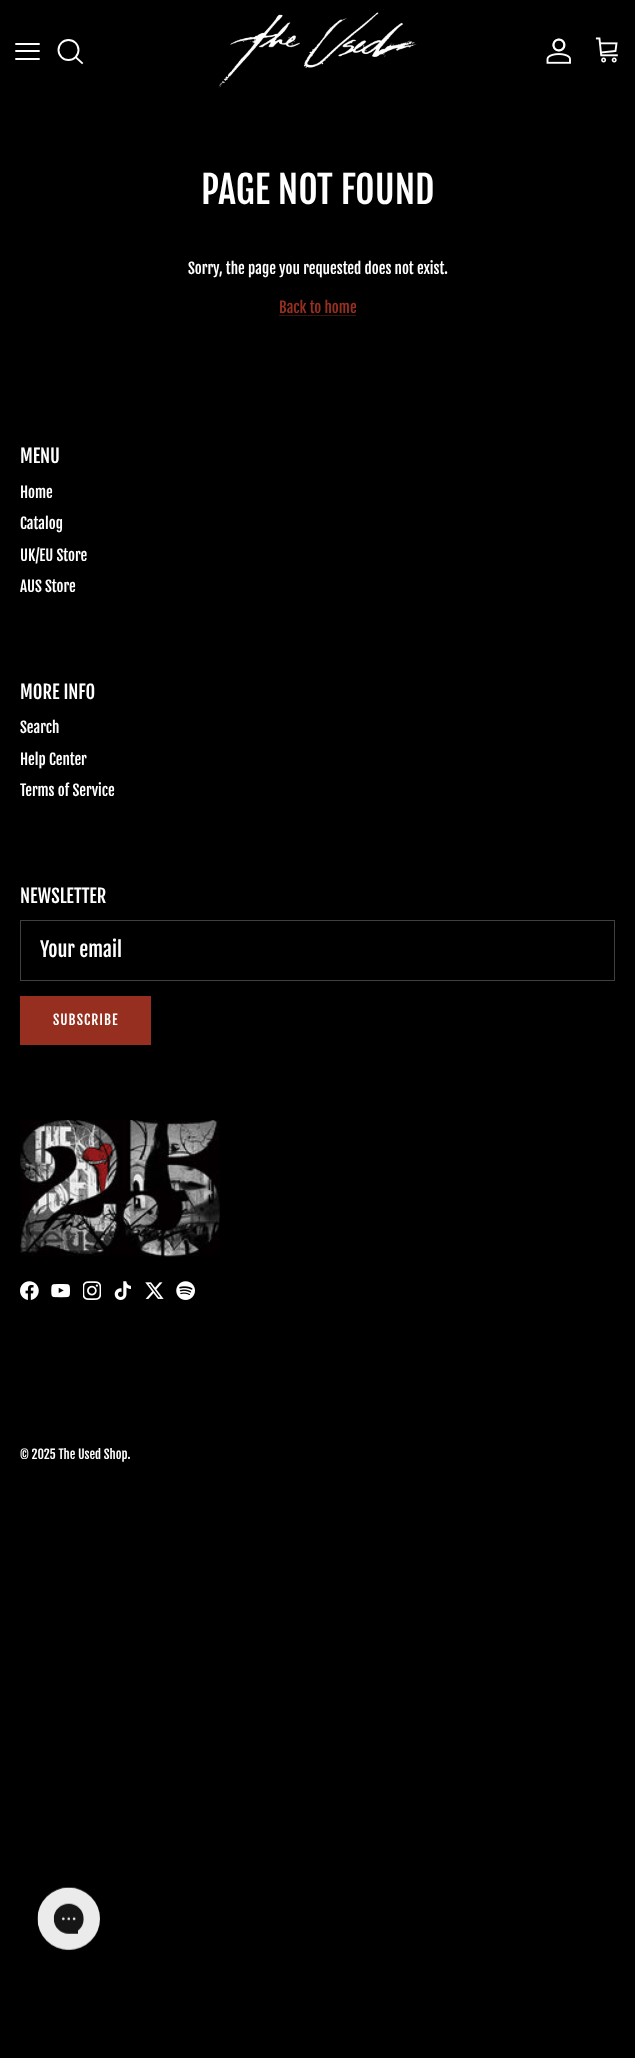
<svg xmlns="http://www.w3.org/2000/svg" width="635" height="2058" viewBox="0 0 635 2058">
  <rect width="100%" height="100%" fill="rgb(0,0,0)"/>
  <path d="M16 51H39M16 44H39M16 59H39" fill="none" stroke="rgb(255,255,255)" stroke-width="1.9" stroke-linecap="round" stroke-linejoin="round"/>
  <circle cx="68.5" cy="50" r="10" fill="none" stroke="rgb(255,255,255)" stroke-width="1.9"/>
  <path d="M76 57.5L82 63" fill="none" stroke="rgb(255,255,255)" stroke-width="1.9" stroke-linecap="square"/>
  <image x="218" y="12" width="199" height="76" href="pic1.png"/>
  <image x="546" y="38" width="25" height="26" href="pic2.png"/>
  <image x="595" y="37" width="23" height="26" href="pic3.png"/>
  <text x="201" y="204" font-family="Fjalla One" font-size="37.5" fill="rgb(255,255,255)">PAGE NOT FOUND</text>
  <text x="188" y="274" font-family="Fjalla One" font-size="15" fill="rgb(255,255,255)">Sorry, the page you requested does not exist.</text>
  <text x="279" y="313" font-family="Fjalla One" font-size="15" fill="rgb(150,47,32)">Back to home</text>
  <rect x="279" y="315" width="77" height="1" fill="rgb(60,19,13)"/>
  <text x="20" y="463" font-family="Fjalla One" font-size="18.5" fill="rgb(255,255,255)">MENU</text>
  <g font-family="Fjalla One" font-size="15" fill="rgb(255,255,255)">
    <text x="20" y="498">Home</text>
    <text x="20" y="529">Catalog</text>
    <text x="20" y="561">UK/EU Store</text>
    <text x="20" y="592">AUS Store</text>
  </g>
  <text x="20" y="699" font-family="Fjalla One" font-size="18.5" fill="rgb(255,255,255)">MORE INFO</text>
  <g font-family="Fjalla One" font-size="15" fill="rgb(255,255,255)">
    <text x="20" y="733">Search</text>
    <text x="20" y="765">Help Center</text>
    <text x="20" y="796">Terms of Service</text>
  </g>
  <text x="20" y="903" font-family="Fjalla One" font-size="18.5" fill="rgb(255,255,255)">NEWSLETTER</text>
  <rect x="20.5" y="920.5" width="594" height="60" fill="none" stroke="rgb(64,64,64)"/>
  <text x="40" y="957" font-family="Fjalla One" font-size="20" fill="rgb(255,255,255)">Your email</text>
  <rect x="20" y="996" width="131" height="49" fill="rgb(150,47,32)"/>
  <text x="53" y="1025" font-family="Fjalla One" font-size="13.75" letter-spacing="1" fill="rgb(255,255,255)">SUBSCRIBE</text>
  <image x="20" y="1120" width="200" height="137" href="pic4.png"/>
  <image x="20" y="1281" width="19" height="19" href="pic5.png"/>
  <image x="51" y="1284" width="19" height="14" href="pic6.png"/>
  <image x="83" y="1281" width="18" height="19" href="pic7.png"/>
  <image x="114" y="1281" width="17" height="19" href="pic8.png"/>
  <image x="145" y="1282" width="19" height="17" href="pic9.png"/>
  <image x="176" y="1281" width="19" height="19" href="pic10.png"/>
  <text x="20" y="1459" font-family="Fjalla One" font-size="12.5" fill="rgb(255,255,255)">© 2025 The Used Shop.</text>
  <image x="37" y="1887" width="63" height="64" href="pic11.png"/>
</svg>
